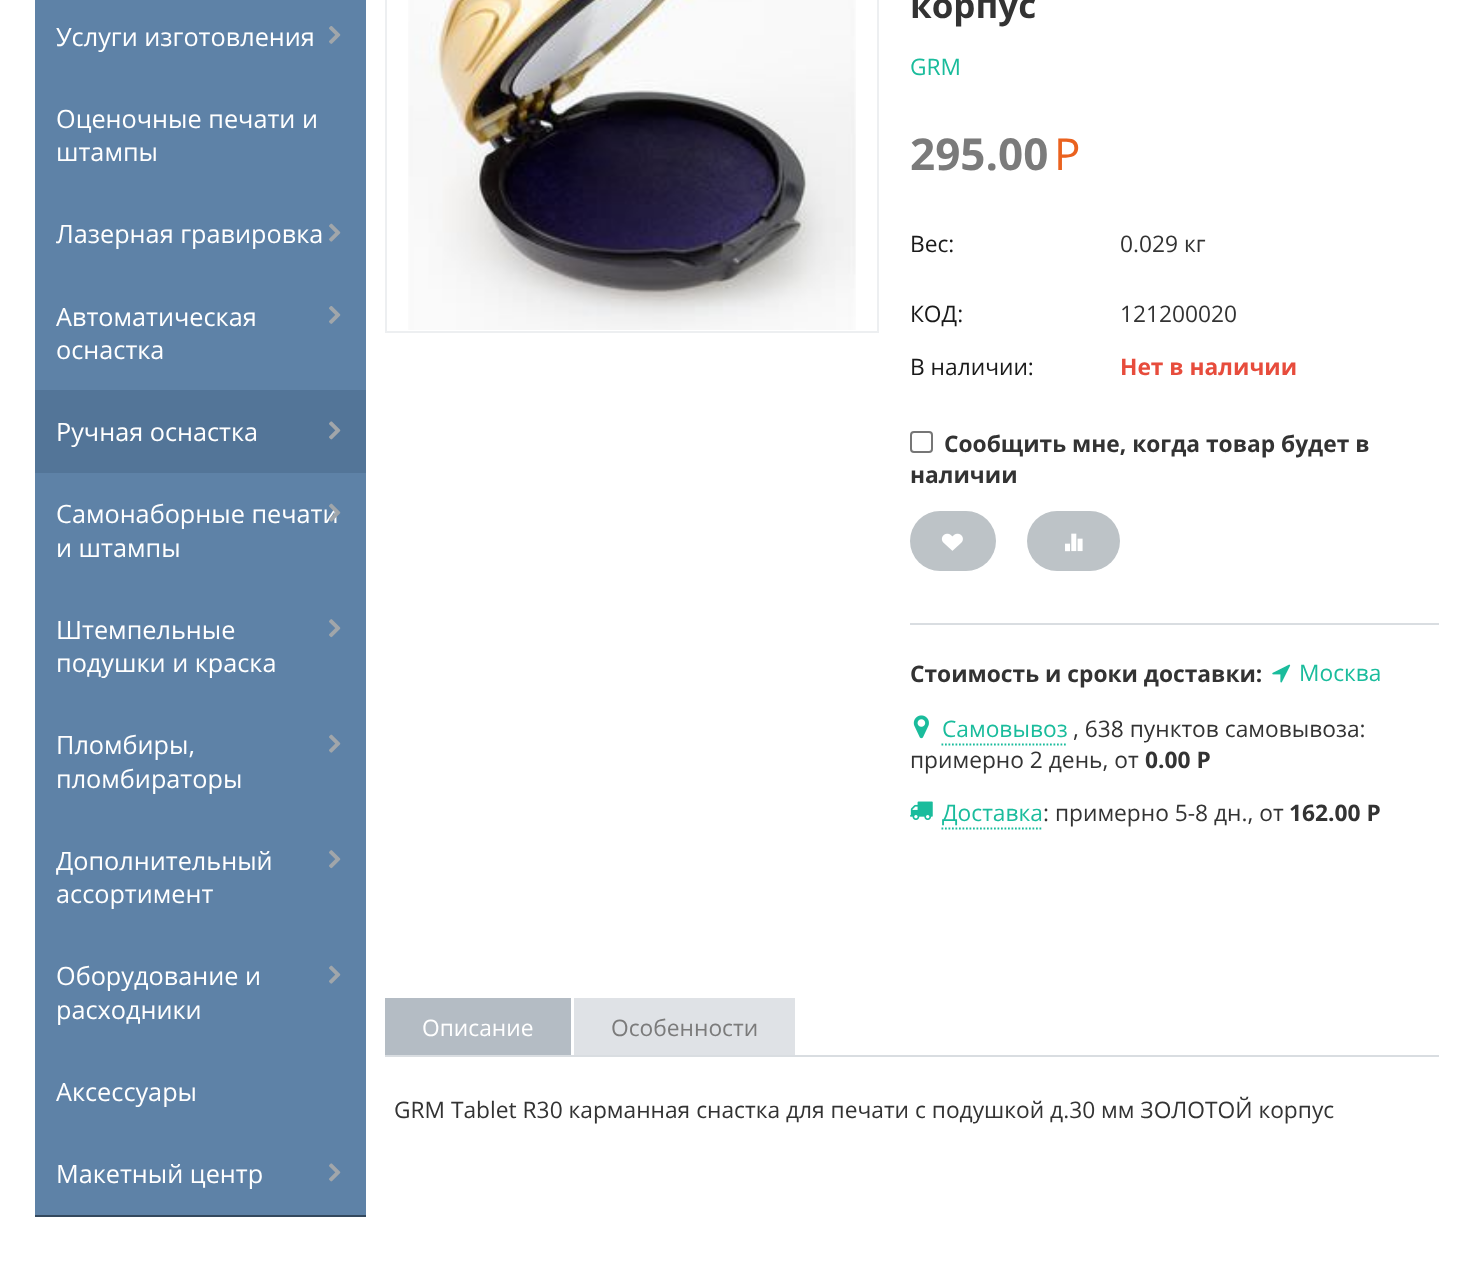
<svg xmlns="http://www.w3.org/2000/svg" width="1484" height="1268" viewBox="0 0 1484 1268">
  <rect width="100%" height="100%" fill="rgb(255,255,255)"/>
  <rect x="35" y="0" width="331" height="1215" fill="rgb(94,130,167)"/>
  <rect x="35" y="1215" width="331" height="2" fill="rgb(52,73,94)"/>
  <text x="56" y="46" font-family="Open Sans" font-size="25.25" fill="rgb(255,255,255)">Услуги изготовления</text>
  <image x="329" y="26" width="12" height="18" href="pic1.png"/>
  <g font-family="Open Sans" font-size="25.25" fill="rgb(255,255,255)">
    <text>
      <tspan x="56" y="128">Оценочные печати и</tspan>
      <tspan x="56" y="161">штампы</tspan>
    </text>
    <text x="56" y="243">Лазерная гравировка</text>
  </g>
  <image x="329" y="223" width="12" height="19" href="pic2.png"/>
  <g font-family="Open Sans" font-size="25.25" fill="rgb(255,255,255)">
    <text>
      <tspan x="56" y="326">Автоматическая</tspan>
      <tspan x="56" y="359">оснастка</tspan>
    </text>
  </g>
  <image x="329" y="306" width="12" height="18" href="pic1.png"/>
  <rect x="35" y="390" width="331" height="83" fill="rgb(83,117,152)"/>
  <text x="56" y="441" font-family="Open Sans" font-size="25.25" fill="rgb(255,255,255)">Ручная оснастка</text>
  <image x="329" y="421" width="12" height="19" href="pic3.png"/>
  <g font-family="Open Sans" font-size="25.25" fill="rgb(255,255,255)">
    <text>
      <tspan x="56" y="523">Самонаборные печати</tspan>
      <tspan x="56" y="557">и штампы</tspan>
    </text>
  </g>
  <image x="329" y="503" width="12" height="19" href="pic4.png"/>
  <g font-family="Open Sans" font-size="25.25" fill="rgb(255,255,255)">
    <text>
      <tspan x="56" y="639">Штемпельные</tspan>
      <tspan x="56" y="672">подушки и краска</tspan>
    </text>
  </g>
  <image x="329" y="619" width="12" height="19" href="pic5.png"/>
  <g font-family="Open Sans" font-size="25.25" fill="rgb(255,255,255)">
    <text>
      <tspan x="56" y="754">Пломбиры,</tspan>
      <tspan x="56" y="788">пломбираторы</tspan>
    </text>
  </g>
  <image x="329" y="734" width="12" height="19" href="pic2.png"/>
  <g font-family="Open Sans" font-size="25.25" fill="rgb(255,255,255)">
    <text>
      <tspan x="56" y="870">Дополнительный</tspan>
      <tspan x="56" y="903">ассортимент</tspan>
    </text>
  </g>
  <image x="329" y="850" width="12" height="19" href="pic5.png"/>
  <g font-family="Open Sans" font-size="25.25" fill="rgb(255,255,255)">
    <text>
      <tspan x="56" y="985">Оборудование и</tspan>
      <tspan x="56" y="1019">расходники</tspan>
    </text>
  </g>
  <image x="329" y="965" width="12" height="19" href="pic2.png"/>
  <g font-family="Open Sans" font-size="25.25" fill="rgb(255,255,255)">
    <text x="56" y="1101">Аксессуары</text>
    <text x="56" y="1183">Макетный центр</text>
  </g>
  <image x="329" y="1163" width="12" height="19" href="pic6.png"/>
  <rect x="386" y="-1" width="492" height="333" fill="none" stroke="rgb(237,239,241)" stroke-width="2"/>
  <image x="408" y="0" width="448" height="330" href="pic7.png"/>
  <text x="910" y="18" font-family="Open Sans" font-size="35" font-weight="bold" fill="rgb(51,51,51)">корпус</text>
  <text x="910" y="75" font-family="Open Sans" font-size="22.75" fill="rgb(26,188,156)">GRM</text>
  <text x="910" y="170" font-family="Open Sans" font-size="44" font-weight="bold" fill="rgb(123,123,123)">295.00</text>
  <text x="1054" y="170" font-family="Open Sans" font-size="44" fill="rgb(234,98,31)">Р</text>
  <text x="910" y="252" font-family="Open Sans" font-size="22.75" fill="rgb(26,26,26)">Вес:</text>
  <text x="1120" y="252" font-family="Open Sans" font-size="22.75" fill="rgb(51,51,51)">0.029 кг</text>
  <text x="910" y="322" font-family="Open Sans" font-size="22.75" fill="rgb(26,26,26)">КОД:</text>
  <text x="1120" y="322" font-family="Open Sans" font-size="22.75" fill="rgb(51,51,51)">121200020</text>
  <text x="910" y="375" font-family="Open Sans" font-size="22.75" fill="rgb(26,26,26)">В наличии:</text>
  <text x="1120" y="375" font-family="Open Sans" font-size="22.75" font-weight="bold" fill="rgb(231,76,60)">Нет в наличии</text>
  <rect x="911" y="432" width="21" height="20" rx="3" fill="none" stroke="rgb(118,118,118)" stroke-width="2"/>
  <g font-family="Open Sans" font-size="22.75" font-weight="bold" fill="rgb(51,51,51)">
    <text x="944" y="452">Сообщить мне, когда товар будет в</text>
    <text x="910" y="483">наличии</text>
  </g>
  <rect x="910" y="511" width="86" height="60" rx="30" fill="rgb(189,195,199)"/>
  <image x="941" y="533" width="22" height="18" href="pic8.png"/>
  <rect x="1027" y="511" width="93" height="60" rx="30" fill="rgb(189,195,199)"/>
  <image x="1065" y="533" width="18" height="19" href="pic9.png"/>
  <rect x="910" y="623" width="529" height="2" fill="rgb(217,221,225)"/>
  <text x="910" y="682" font-family="Open Sans" font-size="22.75" font-weight="bold" fill="rgb(51,51,51)">Стоимость и сроки доставки:</text>
  <image x="1272" y="664" width="19" height="19" href="pic10.png"/>
  <text x="1299" y="681" font-family="Open Sans" font-size="22.75" fill="rgb(26,188,156)">Москва</text>
  <image x="913" y="715" width="16" height="24" href="pic11.png"/>
  <text x="942" y="737" font-family="Open Sans" font-size="22.75" fill="rgb(26,188,156)">Самовывоз</text>
  <path d="M941.5 744.5H1067.5" fill="none" stroke="rgb(26,188,156)" stroke-width="1.8" stroke-dasharray="1.75 1.75"/>
  <g font-family="Open Sans" font-size="22.75" fill="rgb(51,51,51)">
    <text x="1073" y="737">, 638 пунктов самовывоза:</text>
    <text x="910" y="768">примерно 2 день, от</text>
  </g>
  <text x="1145" y="768" font-family="Open Sans" font-size="22.75" font-weight="bold" fill="rgb(51,51,51)">0.00 Р</text>
  <image x="910" y="801" width="23" height="19" href="pic12.png"/>
  <text x="942" y="821" font-family="Open Sans" font-size="22.75" fill="rgb(26,188,156)">Доставка</text>
  <path d="M941.5 828.5H1043" fill="none" stroke="rgb(26,188,156)" stroke-width="1.8" stroke-dasharray="1.75 1.75"/>
  <text x="1043" y="821" font-family="Open Sans" font-size="22.75" fill="rgb(51,51,51)">: примерно 5-8 дн., от</text>
  <text x="1289" y="821" font-family="Open Sans" font-size="22.75" font-weight="bold" fill="rgb(51,51,51)">162.00 Р</text>
  <rect x="385" y="1055" width="1054" height="2" fill="rgb(217,221,225)"/>
  <rect x="385" y="998" width="186" height="57" fill="rgb(180,188,196)"/>
  <text x="422" y="1036" font-family="Open Sans" font-size="22.75" fill="rgb(255,255,255)">Описание</text>
  <rect x="574" y="998" width="221" height="57" fill="rgb(223,226,230)"/>
  <text x="611" y="1036" font-family="Open Sans" font-size="22.75" fill="rgb(123,123,123)">Особенности</text>
  <text x="394" y="1118" font-family="Open Sans" font-size="22.75" fill="rgb(51,51,51)">GRM Tablet R30 карманная снастка для печати с подушкой д.30 мм ЗОЛОТОЙ корпус</text>
</svg>
